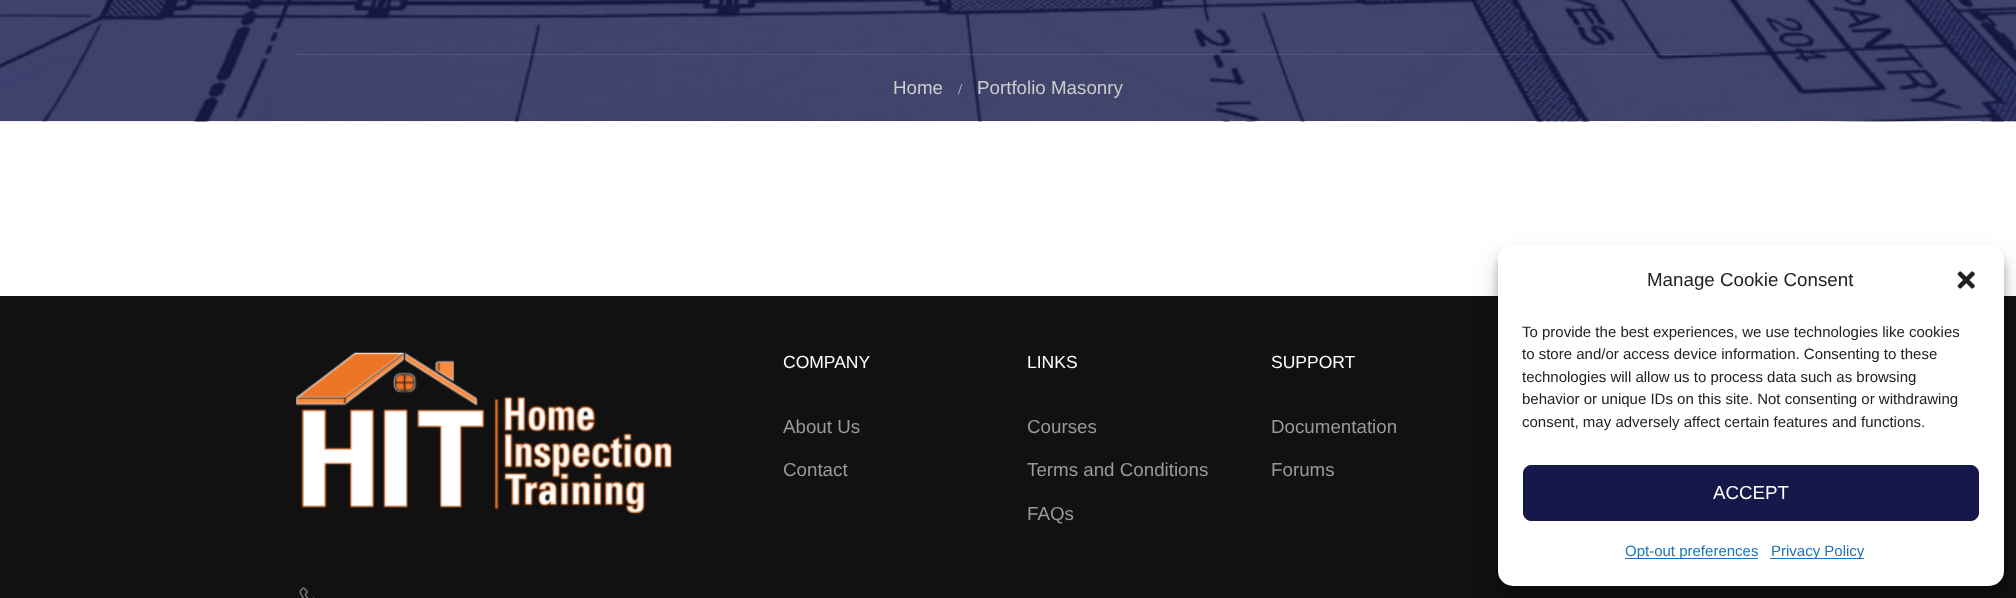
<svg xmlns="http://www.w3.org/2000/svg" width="2016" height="598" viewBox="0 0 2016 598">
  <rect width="100%" height="100%" fill="rgb(255,255,255)"/>
  <image x="0" y="0" width="2016" height="122" href="pic1.png"/>
  <rect x="296" y="54" width="1425" height="1" fill="rgba(255,255,255,0.1)"/>
  <text x="893" y="94" font-family="Arimo" font-size="18.75" fill="rgb(204,204,204)">Home</text>
  <text x="958" y="94" font-family="Liberation Serif" font-size="15" fill="rgb(204,204,204)">/</text>
  <text x="977" y="94" font-family="Arimo" font-size="18.75" fill="rgb(204,204,204)">Portfolio Masonry</text>
  <rect x="0" y="296" width="2016" height="302" fill="rgb(17,17,17)"/>
  <image x="296" y="352" width="376" height="163" href="pic2.png"/>
  <image x="299" y="587" width="16" height="11" href="pic3.png"/>
  <text x="783" y="368" font-family="Arimo" font-size="17.5" fill="rgb(255,255,255)">COMPANY</text>
  <g font-family="Arimo" font-size="18.75" fill="rgb(153,153,153)">
    <text x="783" y="433">About Us</text>
    <text x="783" y="476">Contact</text>
  </g>
  <text x="1027" y="368" font-family="Arimo" font-size="17.5" fill="rgb(255,255,255)">LINKS</text>
  <g font-family="Arimo" font-size="18.75" fill="rgb(153,153,153)">
    <text x="1027" y="433">Courses</text>
    <text x="1027" y="476">Terms and Conditions</text>
    <text x="1027" y="520">FAQs</text>
  </g>
  <text x="1271" y="368" font-family="Arimo" font-size="17.5" fill="rgb(255,255,255)">SUPPORT</text>
  <g font-family="Arimo" font-size="18.75" fill="rgb(153,153,153)">
    <text x="1271" y="433">Documentation</text>
    <text x="1271" y="476">Forums</text>
  </g>
  <rect x="1498" y="253" width="506" height="341" rx="15" fill="rgba(0,0,0,0.23)" filter="blur(4px)"/>
  <rect x="1498" y="258" width="506" height="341" rx="15" fill="rgba(0,0,0,0.19)" filter="blur(12.5px)"/>
  <rect x="1498" y="245" width="506" height="341" rx="15" fill="rgb(255,255,255)"/>
  <text x="1647" y="286" font-family="Arimo" font-size="18.75" fill="rgb(34,34,34)">Manage Cookie Consent</text>
  <image x="1957" y="271" width="18" height="18" href="pic4.png"/>
  <g font-family="Arimo" font-size="15" fill="rgb(34,34,34)">
    <text>
      <tspan x="1522" y="337">To provide the best experiences, we use technologies like cookies</tspan>
      <tspan x="1522" y="359">to store and/or access device information. Consenting to these</tspan>
      <tspan x="1522" y="382">technologies will allow us to process data such as browsing</tspan>
      <tspan x="1522" y="404">behavior or unique IDs on this site. Not consenting or withdrawing</tspan>
      <tspan x="1522" y="427">consent, may adversely affect certain features and functions.</tspan>
    </text>
  </g>
  <rect x="1523.5" y="465.5" width="455" height="55" rx="7.5" fill="rgb(21,24,73)" stroke="rgb(21,24,73)"/>
  <text x="1713" y="499" font-family="Arimo" font-size="18.75" fill="rgb(255,255,255)">ACCEPT</text>
  <rect x="1625" y="558" width="133" height="1" fill="rgb(30,115,190)"/>
  <text x="1625" y="556" font-family="Arimo" font-size="15" fill="rgb(30,115,190)">Opt-out preferences</text>
  <rect x="1770" y="558" width="94" height="1" fill="rgb(30,115,190)"/>
  <text x="1771" y="556" font-family="Arimo" font-size="15" fill="rgb(30,115,190)">Privacy Policy</text>
</svg>
